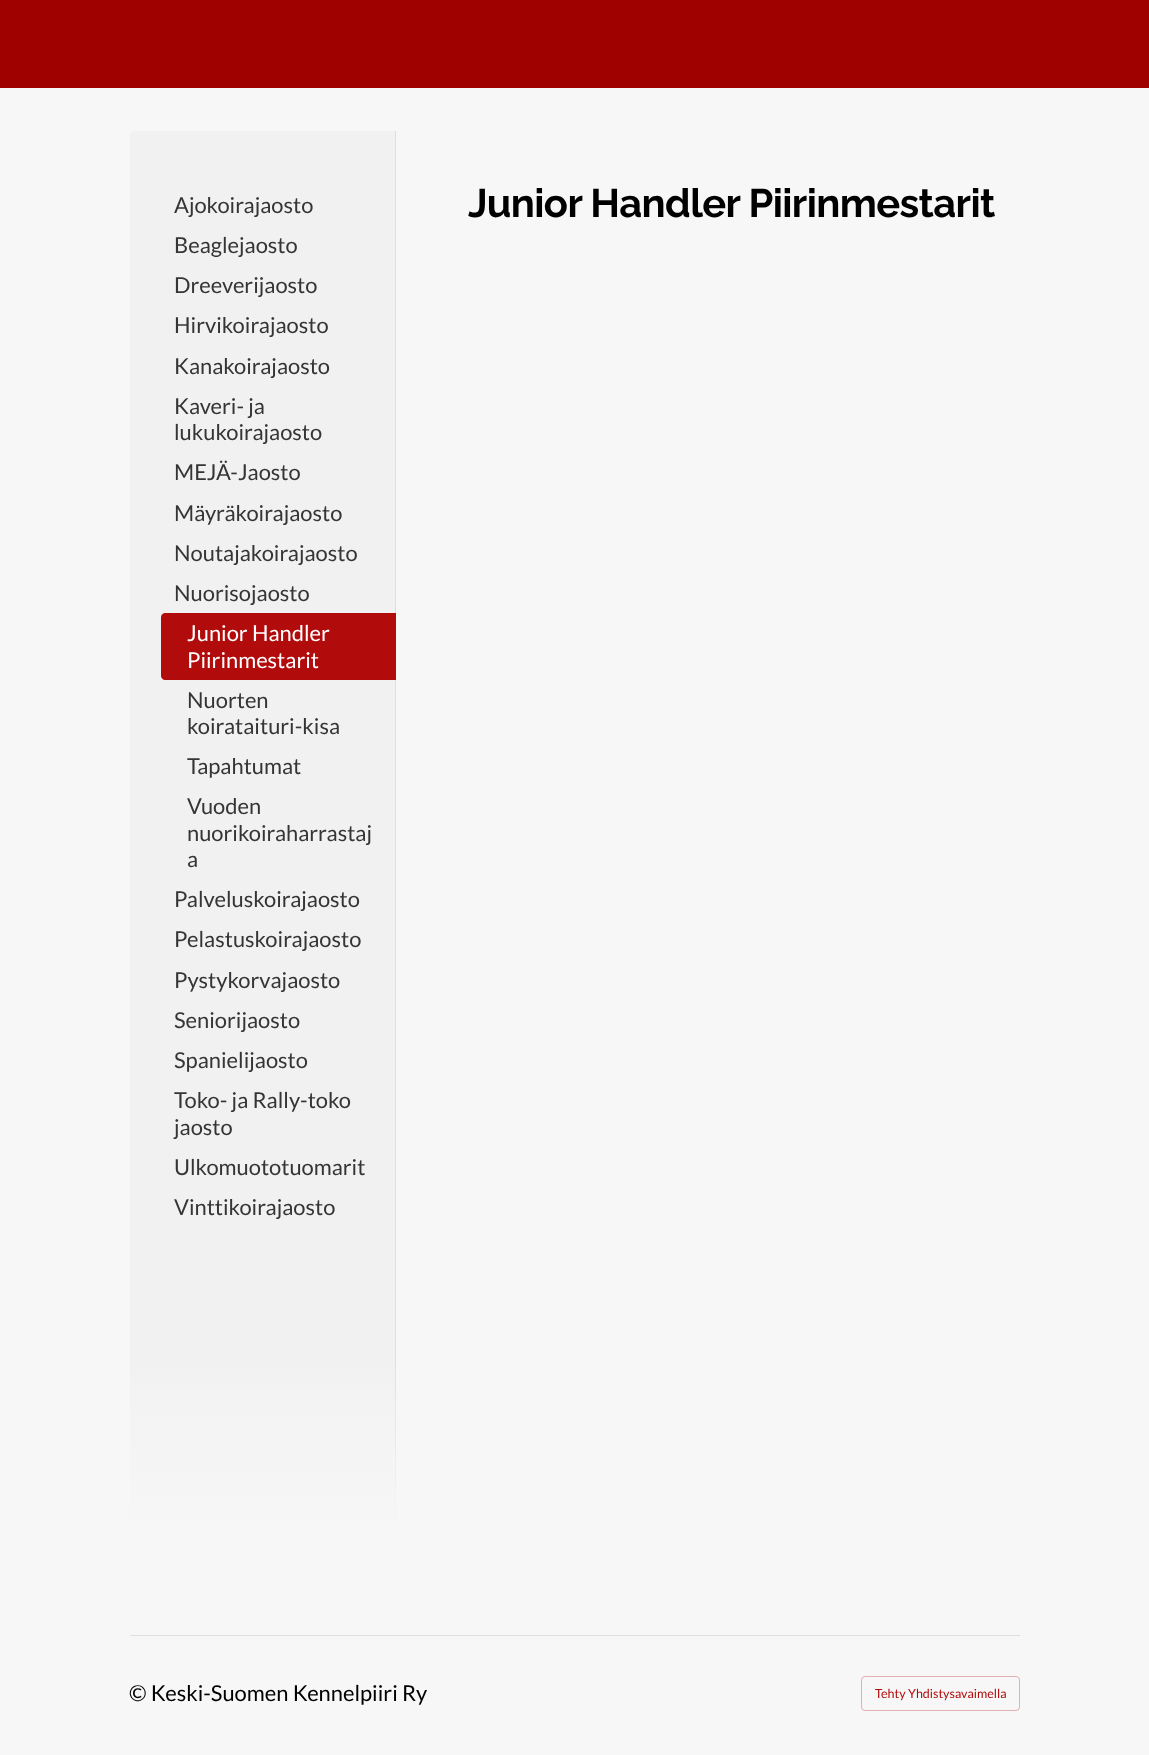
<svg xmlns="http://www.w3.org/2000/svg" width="1149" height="1755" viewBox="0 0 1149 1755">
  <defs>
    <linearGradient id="g1" gradientUnits="userSpaceOnUse" x1="263" y1="1349" x2="263" y2="1536"><stop offset="0" stop-color="rgb(247,247,247)" stop-opacity="0"/><stop offset="1" stop-color="rgb(247,247,247)"/></linearGradient>
  </defs>
  <rect width="100%" height="100%" fill="rgb(247,247,247)"/>
  <rect x="0" y="0" width="1149" height="88" fill="rgb(159,0,0)"/>
  <path d="M134 131H396V1536H130V135C130 133 132 131 134 131Z" fill="rgb(241,241,241)"/>
  <rect x="395" y="131" width="1" height="1405" fill="rgb(222,222,222)"/>
  <g font-family="Lato" font-size="21.9" fill="rgb(53,53,53)">
    <text>
      <tspan x="174" y="213">Ajokoirajaosto</tspan>
      <tspan x="174" y="253">Beaglejaosto</tspan>
      <tspan x="174" y="293">Dreeverijaosto</tspan>
      <tspan x="174" y="333">Hirvikoirajaosto</tspan>
      <tspan x="174" y="374">Kanakoirajaosto</tspan>
      <tspan x="174" y="414">Kaveri- ja</tspan>
      <tspan x="174" y="440">lukukoirajaosto</tspan>
      <tspan x="174" y="480">MEJÄ-Jaosto</tspan>
      <tspan x="174" y="521">Mäyräkoirajaosto</tspan>
      <tspan x="174" y="561">Noutajakoirajaosto</tspan>
      <tspan x="174" y="601">Nuorisojaosto</tspan>
    </text>
  </g>
  <path d="M165 613H396V680H165C163 680 161 678 161 676V617C161 615 163 613 165 613Z" fill="rgb(178,11,11)"/>
  <g font-family="Lato" font-size="21.9" fill="rgb(255,255,255)">
    <text>
      <tspan x="187" y="641">Junior Handler</tspan>
      <tspan x="187" y="668">Piirinmestarit</tspan>
    </text>
  </g>
  <g font-family="Lato" font-size="21.9" fill="rgb(53,53,53)">
    <text>
      <tspan x="187" y="708">Nuorten</tspan>
      <tspan x="187" y="734">koirataituri-kisa</tspan>
      <tspan x="187" y="774">Tapahtumat</tspan>
      <tspan x="187" y="814">Vuoden</tspan>
      <tspan x="187" y="841">nuorikoiraharrastaj</tspan>
      <tspan x="187" y="867">a</tspan>
    </text>
    <text>
      <tspan x="174" y="907">Palveluskoirajaosto</tspan>
      <tspan x="174" y="947">Pelastuskoirajaosto</tspan>
      <tspan x="174" y="988">Pystykorvajaosto</tspan>
      <tspan x="174" y="1028">Seniorijaosto</tspan>
      <tspan x="174" y="1068">Spanielijaosto</tspan>
      <tspan x="174" y="1108">Toko- ja Rally-toko</tspan>
      <tspan x="174" y="1135">jaosto</tspan>
      <tspan x="174" y="1175">Ulkomuototuomarit</tspan>
      <tspan x="174" y="1215">Vinttikoirajaosto</tspan>
    </text>
  </g>
  <rect x="130" y="1365" width="266" height="171" fill="url(#g1)"/>
  <text x="468" y="217" font-family="Raleway" font-size="39.9" font-weight="100" letter-spacing="-0.6" fill="rgb(0,0,0)">Junior Handler Piirinmestarit</text>
  <rect x="130" y="1635" width="890" height="1" fill="rgb(222,222,222)"/>
  <text x="129" y="1701" font-family="Lato" font-size="21.9" fill="rgb(0,0,0)">© Keski-Suomen Kennelpiiri Ry</text>
  <rect x="861.5" y="1676.5" width="158" height="34" rx="3.5" fill="none" stroke="rgb(226,176,176)"/>
  <text x="875" y="1698" font-family="Lato" font-size="12.5" fill="rgb(178,11,11)">Tehty Yhdistysavaimella</text>
</svg>
